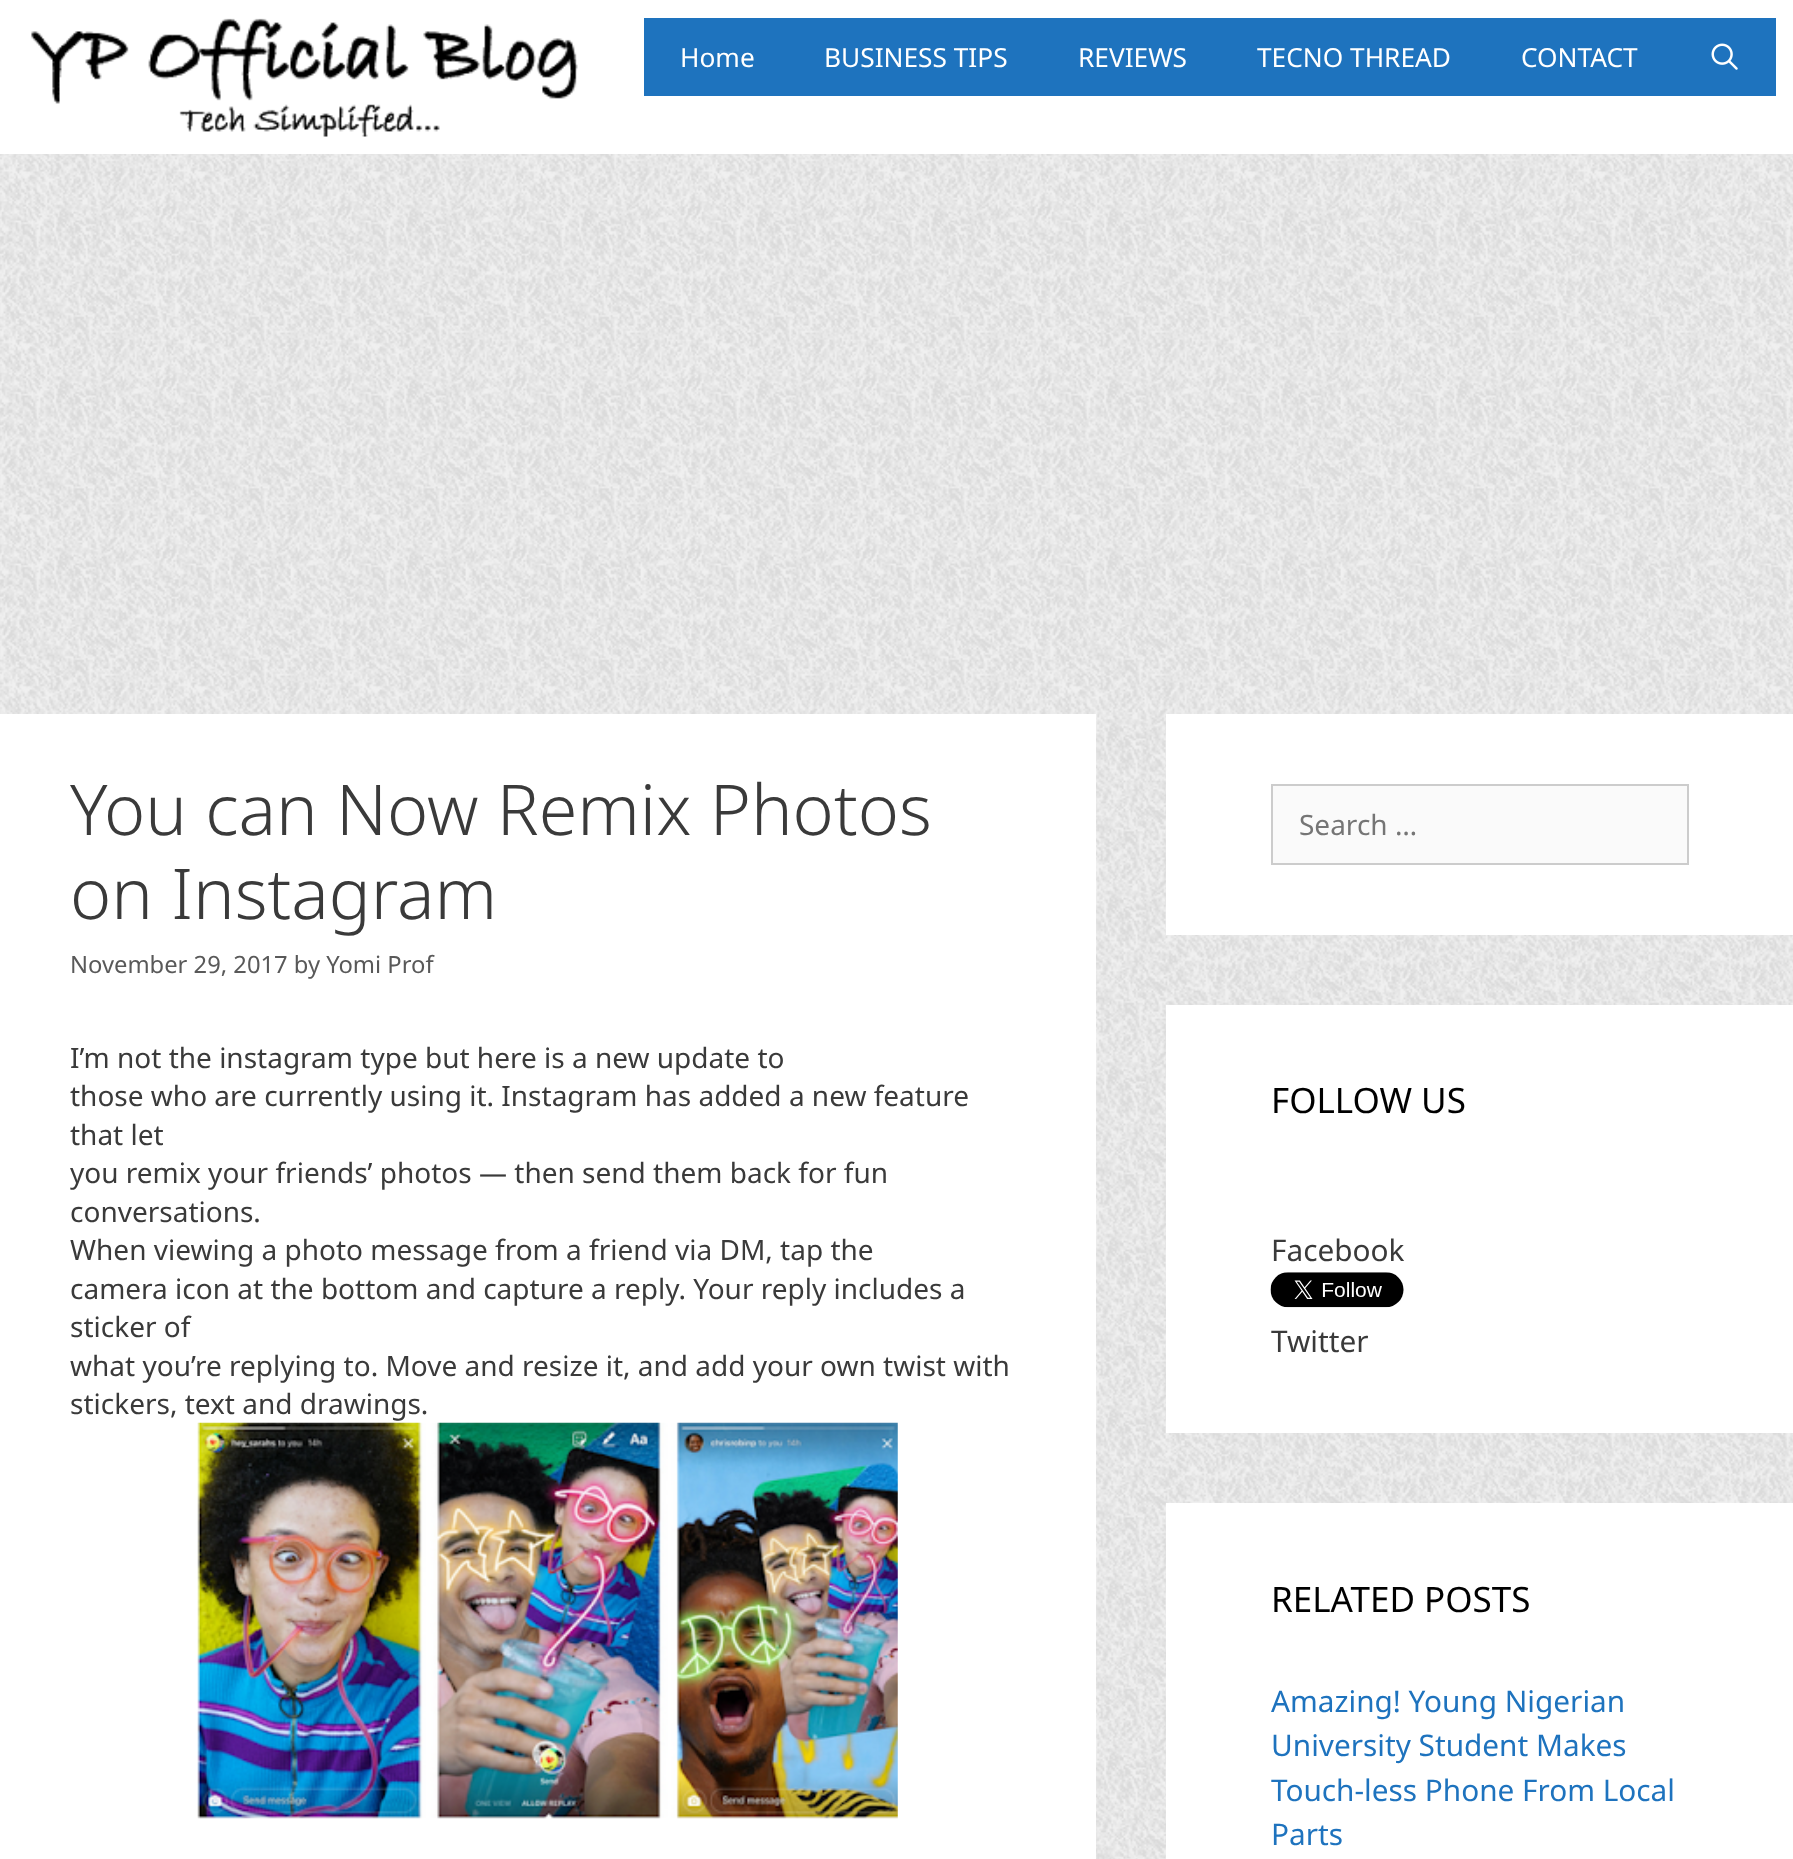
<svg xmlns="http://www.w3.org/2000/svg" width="1793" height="1859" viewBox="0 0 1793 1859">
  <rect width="100%" height="100%" fill="rgb(255,255,255)"/>
  <image x="0" y="154" width="1793" height="1705" href="pic1.png"/>
  <image x="31" y="18" width="547" height="119" href="pic2.png"/>
  <rect x="644" y="18" width="1132" height="78" fill="rgb(30,115,190)"/>
  <g font-family="Noto Sans" font-size="26.25" fill="rgb(255,255,255)">
    <text x="680" y="67">Home</text>
    <text x="824" y="67">BUSINESS TIPS</text>
    <text x="1078" y="67">REVIEWS</text>
    <text x="1257" y="67">TECNO THREAD</text>
    <text x="1521" y="67">CONTACT</text>
  </g>
  <image x="1711" y="43" width="27" height="27" href="pic3.png"/>
  <rect x="0" y="714" width="1096" height="1145" fill="rgb(255,255,255)"/>
  <g font-family="Noto Sans" font-size="70" font-weight="300" fill="rgb(58,58,58)">
    <text>
      <tspan x="70" y="835">You can Now Remix Photos</tspan>
      <tspan x="70" y="919">on Instagram</tspan>
    </text>
  </g>
  <text x="70" y="973" font-family="Noto Sans" font-size="23.75" fill="rgb(89,89,89)">November 29, 2017 by Yomi Prof</text>
  <g font-family="Noto Sans" font-size="28" fill="rgb(58,58,58)">
    <text>
      <tspan x="70" y="1068">I’m not the instagram type but here is a new update to</tspan>
      <tspan x="70" y="1106">those who are currently using it. Instagram has added a new feature</tspan>
      <tspan x="70" y="1145">that let</tspan>
      <tspan x="70" y="1183">you remix your friends’ photos — then send them back for fun</tspan>
      <tspan x="70" y="1222">conversations.</tspan>
      <tspan x="70" y="1260">When viewing a photo message from a friend via DM, tap the</tspan>
      <tspan x="70" y="1299">camera icon at the bottom and capture a reply. Your reply includes a</tspan>
      <tspan x="70" y="1337">sticker of</tspan>
      <tspan x="70" y="1376">what you’re replying to. Move and resize it, and add your own twist with</tspan>
      <tspan x="70" y="1414">stickers, text and drawings.</tspan>
    </text>
  </g>
  <image x="197" y="1422" width="701" height="397" href="pic4.png"/>
  <rect x="1166" y="714" width="627" height="221" fill="rgb(255,255,255)"/>
  <rect x="1272" y="785" width="416" height="79" fill="rgb(250,250,250)" stroke="rgb(204,204,204)" stroke-width="2"/>
  <text x="1299" y="835" font-family="Noto Sans" font-size="28" fill="rgb(117,117,117)">Search …</text>
  <rect x="1166" y="1005" width="627" height="428" fill="rgb(255,255,255)"/>
  <text x="1271" y="1113" font-family="Noto Sans" font-size="35" fill="rgb(0,0,0)">FOLLOW US</text>
  <text x="1271" y="1261" font-family="Noto Sans" font-size="29.75" fill="rgb(58,58,58)">Facebook</text>
  <image x="1270" y="1272" width="134" height="36" href="pic5.png"/>
  <text x="1271" y="1352" font-family="Noto Sans" font-size="29.75" fill="rgb(58,58,58)">Twitter</text>
  <rect x="1166" y="1503" width="627" height="356" fill="rgb(255,255,255)"/>
  <text x="1271" y="1612" font-family="Noto Sans" font-size="35" fill="rgb(0,0,0)">RELATED POSTS</text>
  <g font-family="Noto Sans" font-size="29.75" fill="rgb(30,115,190)">
    <text>
      <tspan x="1271" y="1712">Amazing! Young Nigerian</tspan>
      <tspan x="1271" y="1756">University Student Makes</tspan>
      <tspan x="1271" y="1801">Touch-less Phone From Local</tspan>
      <tspan x="1271" y="1845">Parts</tspan>
    </text>
  </g>
</svg>
